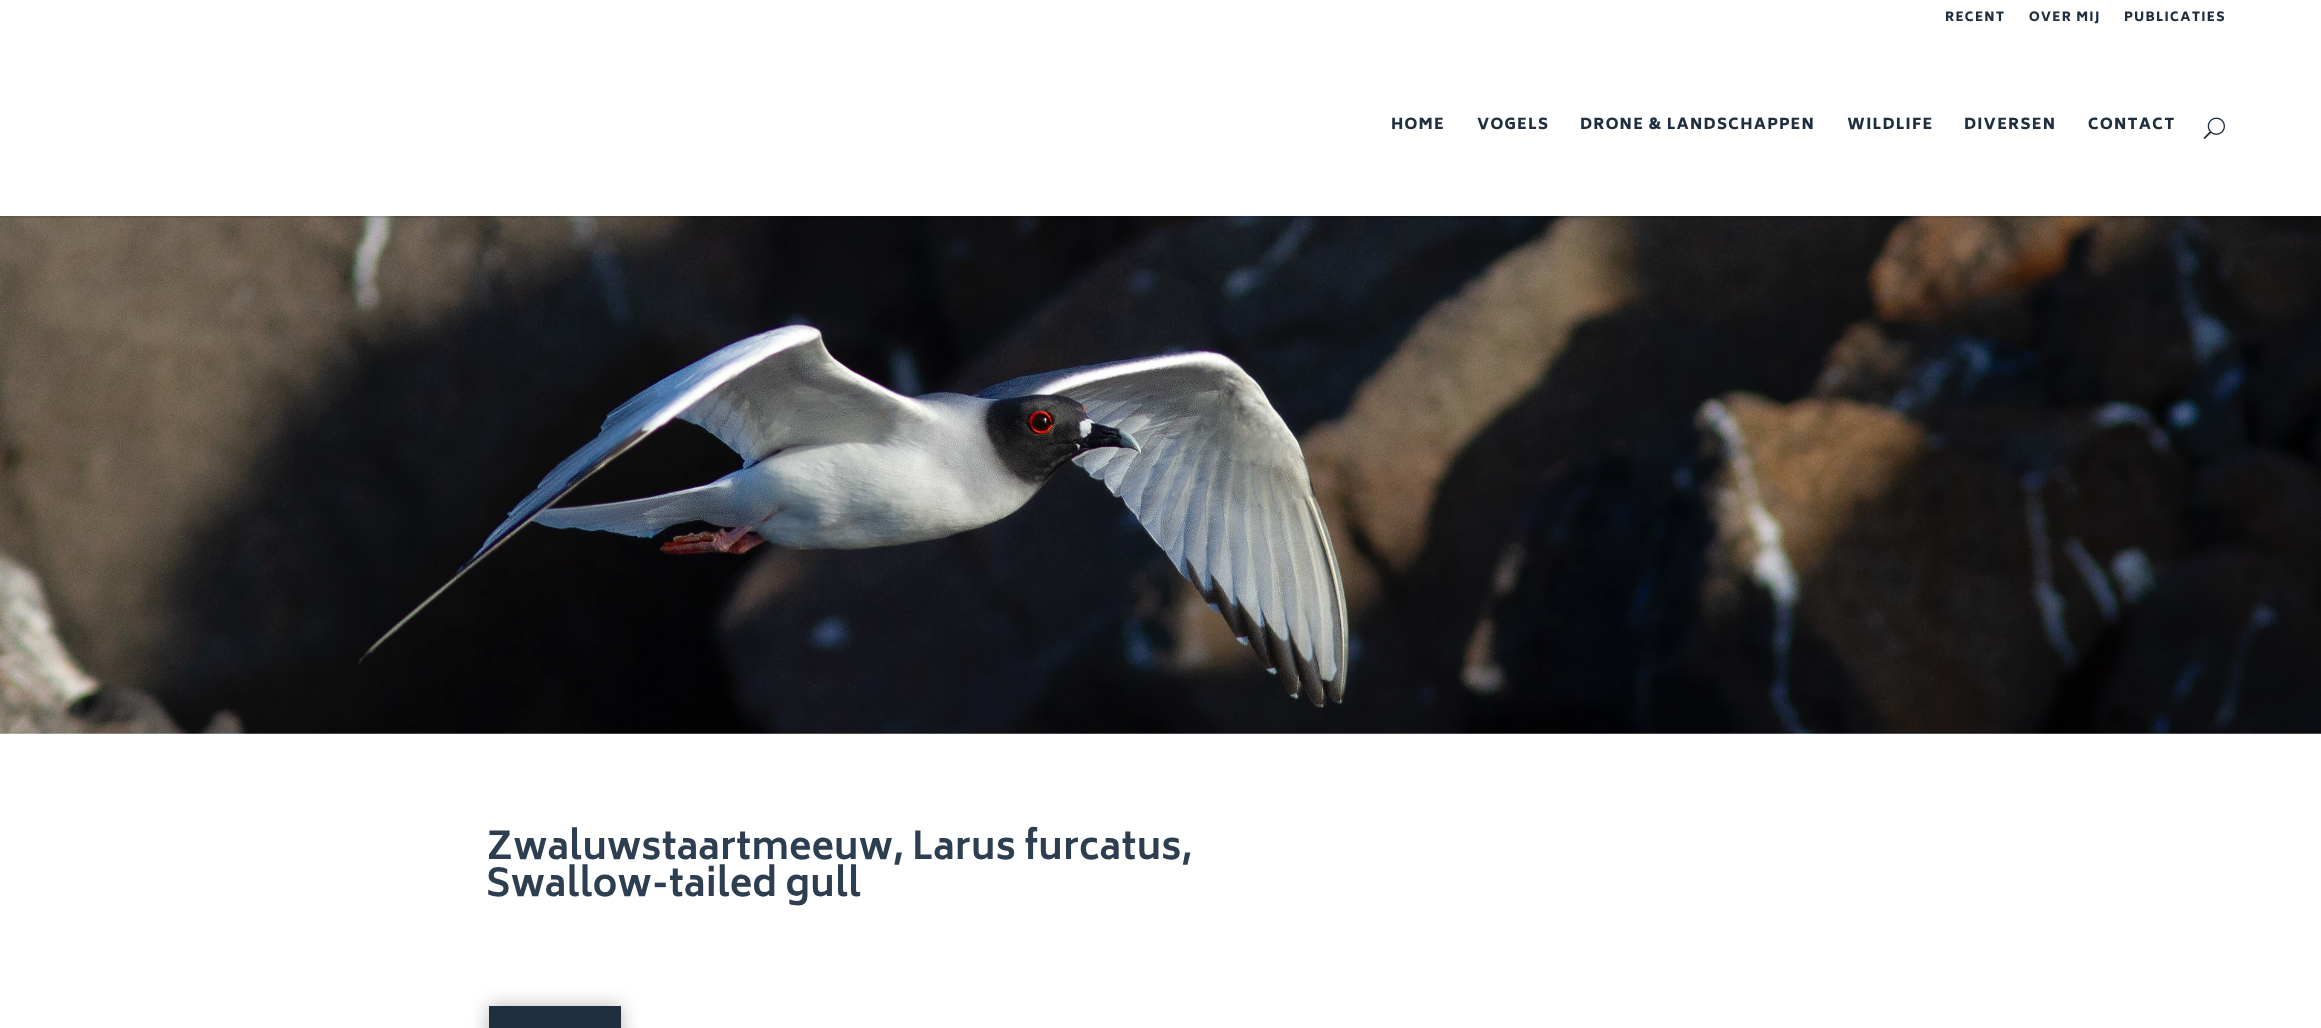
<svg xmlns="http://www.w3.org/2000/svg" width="2321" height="1028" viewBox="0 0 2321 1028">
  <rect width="100%" height="100%" fill="rgb(255,255,255)"/>
  <g font-family="Biryani" font-size="12.5" font-weight="900" letter-spacing="1.25" fill="rgb(31,47,63)">
    <text x="1945" y="21">RECENT</text>
    <text x="2029" y="21">OVER MIJ</text>
    <text x="2124" y="21">PUBLICATIES</text>
  </g>
  <image x="0" y="216" width="2321" height="518" href="pic2.png"/>
  <rect x="0" y="216" width="2239" height="2" fill="rgba(0,0,0,0.1)"/>
  <g font-family="Biryani" font-size="15" font-weight="900" letter-spacing="1.25" fill="rgb(31,47,63)">
    <text x="1391" y="129">HOME</text>
    <text x="1477" y="129">VOGELS</text>
    <text x="1580" y="129">DRONE &amp; LANDSCHAPPEN</text>
    <text x="1847" y="129">WILDLIFE</text>
    <text x="1964" y="129">DIVERSEN</text>
    <text x="2088" y="129">CONTACT</text>
  </g>
  <image x="2203" y="117" width="22" height="22" href="pic1.png"/>
  <g font-family="Biryani" font-size="37.5" font-weight="bold" fill="rgb(44,62,80)">
    <text>
      <tspan x="486" y="859">Zwaluwstaartmeeuw, Larus furcatus,</tspan>
      <tspan x="486" y="896">Swallow-tailed gull</tspan>
    </text>
  </g>
  <rect x="489" y="1006" width="132" height="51" fill="rgb(184,184,184)" filter="blur(9.5px)"/>
  <rect x="489" y="1006" width="132" height="22" fill="rgb(31,47,63)"/>
</svg>
